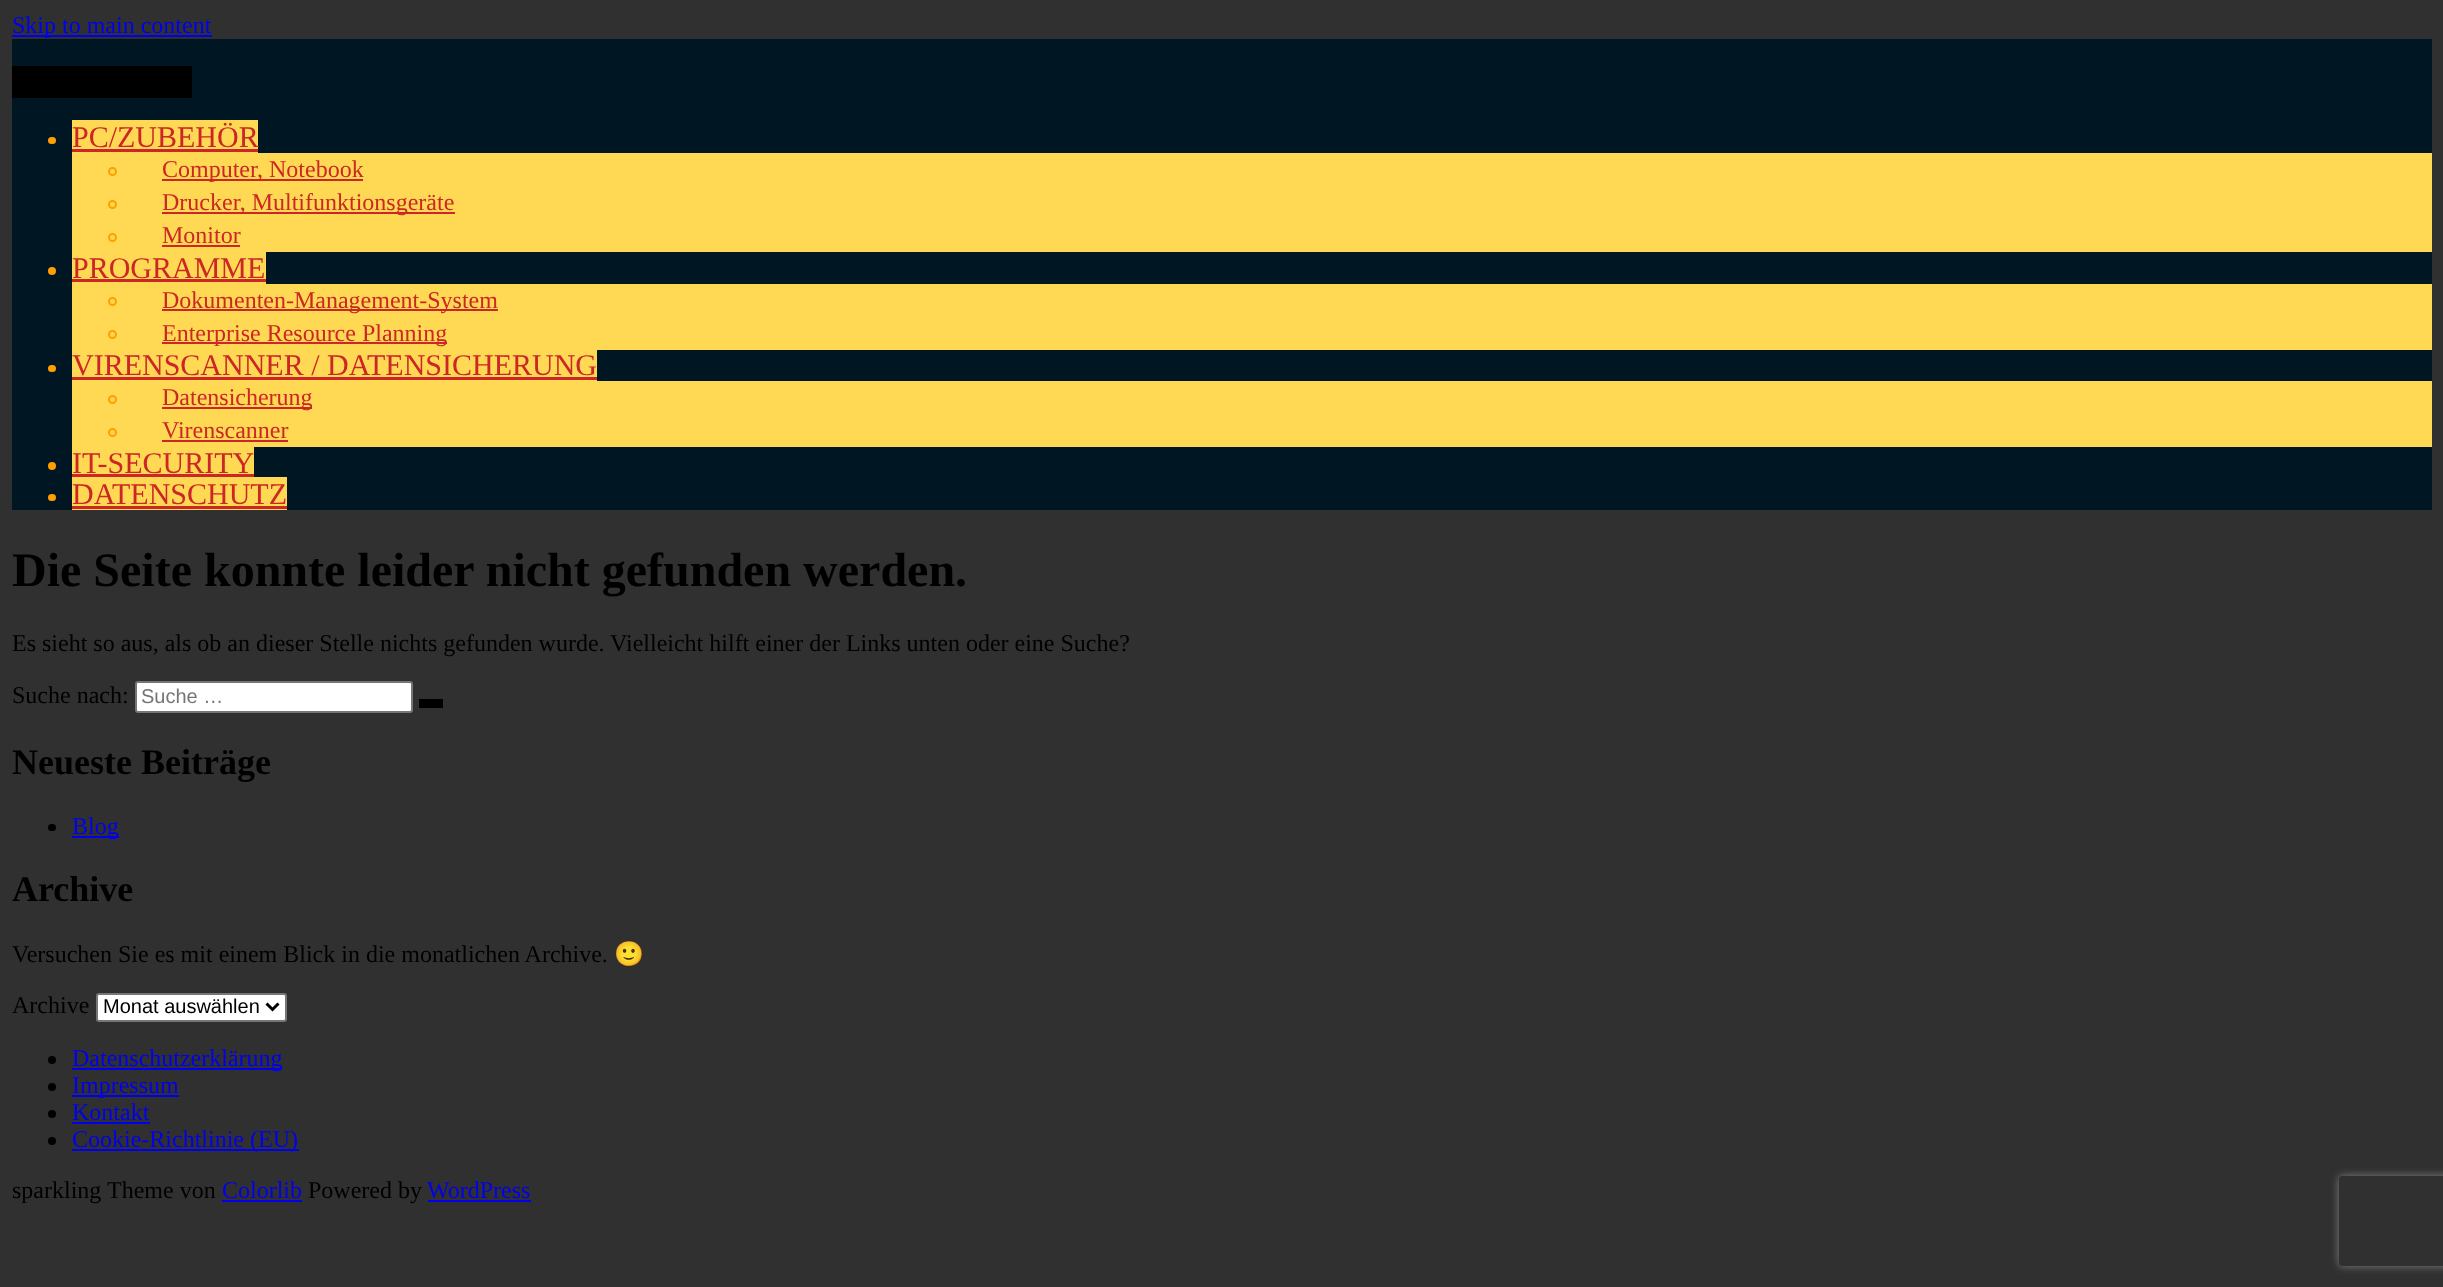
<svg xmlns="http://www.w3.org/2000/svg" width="2443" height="1287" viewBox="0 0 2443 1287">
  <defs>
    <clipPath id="clip1"><path d="M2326 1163H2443V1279H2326ZM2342 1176H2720C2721.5 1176 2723 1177.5 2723 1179V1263C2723 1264.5 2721.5 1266 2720 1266H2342C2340.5 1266 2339 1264.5 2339 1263V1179C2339 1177.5 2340.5 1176 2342 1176Z" clip-rule="evenodd"/></clipPath>
  </defs>
  <rect width="100%" height="100%" fill="rgb(48,48,48)"/>
  <rect x="12" y="35" width="200" height="2" fill="rgb(0,0,238)"/>
  <text x="12" y="33" font-family="Liberation Serif" font-size="24" fill="rgb(0,0,238)">Skip to main content</text>
  <rect x="12" y="39" width="2420" height="471" fill="rgb(0,23,35)"/>
  <rect x="12" y="66" width="180" height="32" fill="rgb(0,0,0)"/>
  <rect x="48" y="137" width="8" height="7" rx="3.5" fill="rgb(255,159,0)"/>
  <rect x="72" y="120" width="186" height="33" fill="rgb(255,217,84)"/>
  <text x="72" y="147" font-family="Liberation Serif" font-size="30" fill="rgb(204,38,38)">PC/ZUBEHÖR</text>
  <rect x="72" y="149" width="186" height="3" fill="rgb(204,38,38)"/>
  <rect x="72" y="153" width="2360" height="99" fill="rgb(255,217,84)"/>
  <circle cx="112.5" cy="171.5" r="3.5" fill="none" stroke="rgb(255,159,0)" stroke-width="2"/>
  <rect x="162" y="179" width="201" height="2" fill="rgb(204,38,38)"/>
  <text x="162" y="177" font-family="Liberation Serif" font-size="24" fill="rgb(204,38,38)">Computer, Notebook</text>
  <circle cx="112.5" cy="204.5" r="3.5" fill="none" stroke="rgb(255,159,0)" stroke-width="2"/>
  <rect x="162" y="212" width="293" height="2" fill="rgb(204,38,38)"/>
  <text x="162" y="210" font-family="Liberation Serif" font-size="24" fill="rgb(204,38,38)">Drucker, Multifunktionsgeräte</text>
  <circle cx="112.5" cy="237.5" r="3.5" fill="none" stroke="rgb(255,159,0)" stroke-width="2"/>
  <text x="162" y="243" font-family="Liberation Serif" font-size="24" fill="rgb(204,38,38)">Monitor</text>
  <rect x="162" y="245" width="78" height="2" fill="rgb(204,38,38)"/>
  <circle cx="52" cy="271" r="4" fill="rgb(255,159,0)"/>
  <rect x="72" y="252" width="194" height="32" fill="rgb(255,217,84)"/>
  <text x="72" y="278" font-family="Liberation Serif" font-size="30" fill="rgb(204,38,38)">PROGRAMME</text>
  <rect x="72" y="279" width="194" height="3" fill="rgb(204,38,38)"/>
  <rect x="72" y="284" width="2360" height="66" fill="rgb(255,217,84)"/>
  <circle cx="112.5" cy="301.5" r="3.5" fill="none" stroke="rgb(255,159,0)" stroke-width="2"/>
  <rect x="162" y="309" width="336" height="2" fill="rgb(204,38,38)"/>
  <text x="162" y="308" font-family="Liberation Serif" font-size="24" fill="rgb(204,38,38)">Dokumenten-Management-System</text>
  <circle cx="112.5" cy="334.5" r="3.5" fill="none" stroke="rgb(255,159,0)" stroke-width="2"/>
  <rect x="162" y="342" width="285" height="2" fill="rgb(204,38,38)"/>
  <text x="162" y="341" font-family="Liberation Serif" font-size="24" fill="rgb(204,38,38)">Enterprise Resource Planning</text>
  <rect x="48" y="365" width="8" height="7" rx="3.5" fill="rgb(255,159,0)"/>
  <rect x="72" y="350" width="525" height="31" fill="rgb(255,217,84)"/>
  <text x="72" y="375" font-family="Liberation Serif" font-size="30" fill="rgb(204,38,38)">VIRENSCANNER / DATENSICHERUNG</text>
  <rect x="72" y="377" width="525" height="3" fill="rgb(204,38,38)"/>
  <rect x="72" y="381" width="2360" height="66" fill="rgb(255,217,84)"/>
  <circle cx="112.5" cy="399.5" r="3.5" fill="none" stroke="rgb(255,159,0)" stroke-width="2"/>
  <rect x="162" y="407" width="150" height="2" fill="rgb(204,38,38)"/>
  <text x="162" y="405" font-family="Liberation Serif" font-size="24" fill="rgb(204,38,38)">Datensicherung</text>
  <circle cx="112.5" cy="432.5" r="3.5" fill="none" stroke="rgb(255,159,0)" stroke-width="2"/>
  <text x="162" y="438" font-family="Liberation Serif" font-size="24" fill="rgb(204,38,38)">Virenscanner</text>
  <rect x="162" y="440" width="126" height="2" fill="rgb(204,38,38)"/>
  <circle cx="52" cy="466" r="4" fill="rgb(255,159,0)"/>
  <rect x="72" y="447" width="182" height="27" fill="rgb(255,217,84)"/>
  <text x="72" y="473" font-family="Liberation Serif" font-size="30" fill="rgb(204,38,38)">IT-SECURITY</text>
  <rect x="72" y="474" width="182" height="3" fill="rgb(204,38,38)"/>
  <rect x="48" y="494" width="8" height="7" rx="3.5" fill="rgb(255,159,0)"/>
  <rect x="72" y="477" width="215" height="33" fill="rgb(255,217,84)"/>
  <text x="72" y="504" font-family="Liberation Serif" font-size="30" fill="rgb(204,38,38)">DATENSCHUTZ</text>
  <rect x="72" y="506" width="215" height="3" fill="rgb(204,38,38)"/>
  <text x="12" y="586" font-family="Liberation Serif" font-size="48" font-weight="bold" fill="rgb(0,0,0)">Die Seite konnte leider nicht gefunden werden.</text>
  <g font-family="Liberation Serif" font-size="24" fill="rgb(0,0,0)">
    <text x="12" y="651">Es sieht so aus, als ob an dieser Stelle nichts gefunden wurde. Vielleicht hilft einer der Links unten oder eine Suche?</text>
    <text x="12" y="703">Suche nach:</text>
  </g>
  <rect x="136" y="682" width="276" height="30" rx="2" fill="rgb(255,255,255)" stroke="rgb(118,118,118)" stroke-width="2"/>
  <text x="141" y="703" font-family="Liberation Sans" font-size="20" fill="rgb(117,117,117)">Suche …</text>
  <rect x="419" y="699" width="24" height="9" fill="rgb(0,0,0)"/>
  <text x="12" y="774" font-family="Liberation Serif" font-size="36" font-weight="bold" fill="rgb(0,0,0)">Neueste Beiträge</text>
  <rect x="48" y="824" width="8" height="7" rx="3.5" fill="rgb(0,0,0)"/>
  <rect x="72" y="836" width="47" height="2" fill="rgb(0,0,238)"/>
  <text x="72" y="834" font-family="Liberation Serif" font-size="24" fill="rgb(0,0,238)">Blog</text>
  <text x="12" y="901" font-family="Liberation Serif" font-size="36" font-weight="bold" fill="rgb(0,0,0)">Archive</text>
  <text x="12" y="962" font-family="Liberation Serif" font-size="24" fill="rgb(0,0,0)">Versuchen Sie es mit einem Blick in die monatlichen Archive.</text>
  <text x="614" y="962" font-family="Noto Color Emoji" font-size="24" fill="rgb(0,0,0)">🙂</text>
  <text x="12" y="1013" font-family="Liberation Serif" font-size="24" fill="rgb(0,0,0)">Archive</text>
  <rect x="97" y="994" width="189" height="27" rx="2" fill="rgb(255,255,255)" stroke="rgb(118,118,118)" stroke-width="2"/>
  <path d="M266.5 1003.5L272.5 1009.5L278.5 1003.5" fill="none" stroke="rgb(0,0,0)" stroke-width="3"/>
  <text x="103" y="1013" font-family="Liberation Sans" font-size="20" fill="rgb(0,0,0)">Monat auswählen</text>
  <circle cx="52" cy="1060" r="4" fill="rgb(0,0,0)"/>
  <rect x="72" y="1068" width="210" height="2" fill="rgb(0,0,238)"/>
  <text x="72" y="1066" font-family="Liberation Serif" font-size="24" fill="rgb(0,0,238)">Datenschutzerklärung</text>
  <circle cx="52" cy="1087" r="4" fill="rgb(0,0,0)"/>
  <rect x="72" y="1095" width="107" height="2" fill="rgb(0,0,238)"/>
  <text x="72" y="1093" font-family="Liberation Serif" font-size="24" fill="rgb(0,0,238)">Impressum</text>
  <circle cx="52" cy="1114" r="4" fill="rgb(0,0,0)"/>
  <text x="72" y="1120" font-family="Liberation Serif" font-size="24" fill="rgb(0,0,238)">Kontakt</text>
  <rect x="72" y="1122" width="78" height="2" fill="rgb(0,0,238)"/>
  <circle cx="52" cy="1141" r="4" fill="rgb(0,0,0)"/>
  <rect x="72" y="1149" width="227" height="2" fill="rgb(0,0,238)"/>
  <text x="72" y="1147" font-family="Liberation Serif" font-size="24" fill="rgb(0,0,238)">Cookie-Richtlinie (EU)</text>
  <g font-family="Liberation Serif" font-size="24" fill="rgb(0,0,0)">
    <text x="12" y="1198">sparkling</text>
    <text x="107" y="1198">Theme von</text>
  </g>
  <text x="222" y="1198" font-family="Liberation Serif" font-size="24" fill="rgb(0,0,238)">Colorlib</text>
  <rect x="222" y="1200" width="80" height="2" fill="rgb(0,0,238)"/>
  <text x="308" y="1198" font-family="Liberation Serif" font-size="24" fill="rgb(0,0,0)">Powered by</text>
  <text x="427" y="1198" font-family="Liberation Serif" font-size="24" fill="rgb(0,0,238)">WordPress</text>
  <rect x="428" y="1200" width="103" height="2" fill="rgb(0,0,238)"/>
  <g clip-path="url(#clip1)">
    <rect x="2339" y="1176" width="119" height="90" rx="3" fill="rgb(128,128,128)" filter="blur(4px)"/>
  </g>
</svg>
